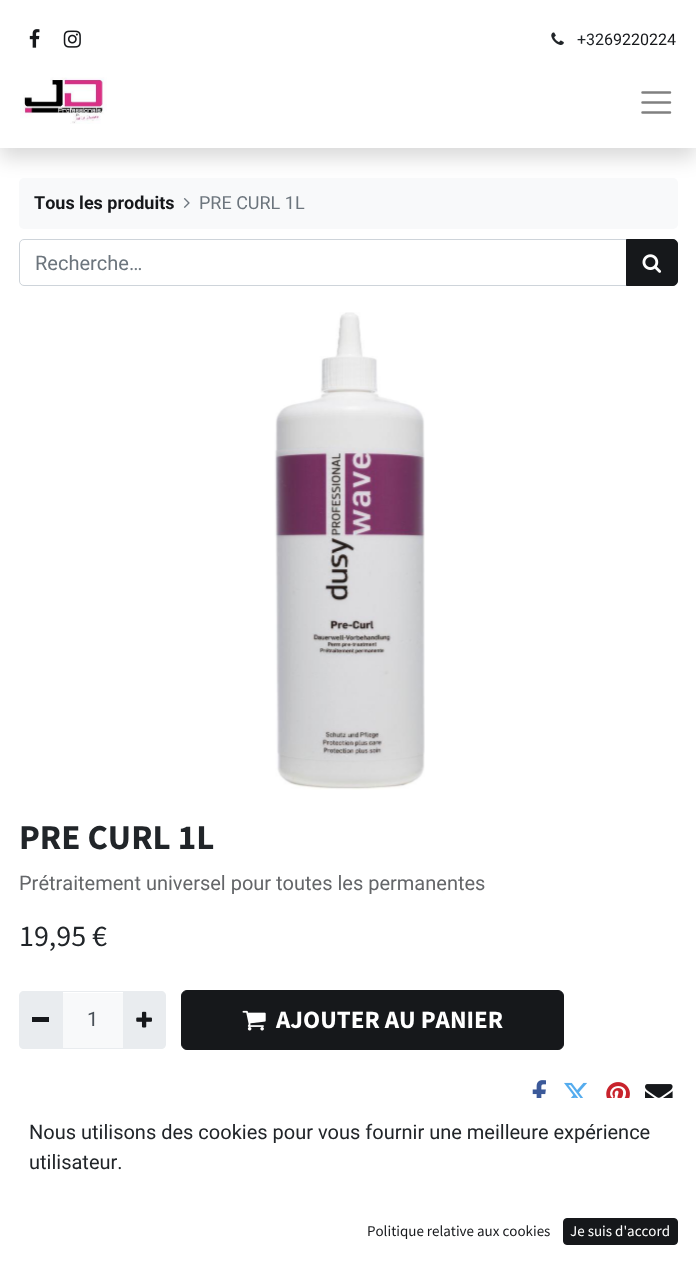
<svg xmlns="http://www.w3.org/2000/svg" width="696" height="1275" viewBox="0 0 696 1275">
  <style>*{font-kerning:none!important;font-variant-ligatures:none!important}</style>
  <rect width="100%" height="100%" fill="rgb(255,255,255)"/>
  <rect x="19" y="178" width="659" height="51" rx="5" fill="rgb(248,249,250)"/>
  <rect x="0" y="10" width="696" height="148" fill="rgba(0,0,0,0.15)" filter="blur(10px)"/>
  <rect x="0" y="0" width="696" height="148" fill="rgb(255,255,255)"/>
  <image x="29" y="29" width="11" height="19" href="pic1.png"/>
  <image x="63" y="30" width="18" height="18" href="pic2.png"/>
  <image x="551" y="32" width="13" height="13" href="pic3.png"/>
  <text x="577" y="45" font-family="Roboto" font-size="16" fill="rgb(33,37,41)">+32</text>
  <text x="604" y="45" font-family="Roboto" font-size="16" fill="rgb(22,24,27)">69220224</text>
  <image x="20" y="77" width="87" height="47" href="pic4.png"/>
  <path d="M642.5 92.5H670M642.5 102.5H670M642.5 112.5H670" fill="none" stroke="rgb(128,128,128)" stroke-width="2.5" stroke-linecap="round"/>
  <text x="34" y="209" font-family="Roboto" font-size="18" font-weight="bold" fill="rgb(22,24,27)">Tous les produits</text>
  <image x="183" y="198" width="7" height="10" href="pic5.png"/>
  <text x="199" y="209" font-family="Roboto" font-size="18" fill="rgb(108,117,125)">PRE CURL 1L</text>
  <path d="M24 239.5H627.5V285.5H24C21.5 285.5 19.5 283.5 19.5 281V244C19.5 241.5 21.5 239.5 24 239.5Z" fill="none" stroke="rgb(206,212,218)"/>
  <text x="35" y="270" font-family="Roboto" font-size="20" fill="rgb(108,117,125)">Recherche…</text>
  <path d="M626.5 239.5H673C675.5 239.5 677.5 241.5 677.5 244V281C677.5 283.5 675.5 285.5 673 285.5H626.5Z" fill="rgb(22,24,27)" stroke="rgb(22,24,27)"/>
  <image x="642" y="254" width="20" height="19" href="pic6.png"/>
  <image x="274" y="312" width="151" height="478" href="pic7.png"/>
  <text x="19" y="849" font-family="Source Sans Pro" font-size="35" font-weight="bold" fill="rgb(33,37,41)">PRE CURL 1L</text>
  <text x="19" y="890" font-family="Roboto" font-size="20" fill="rgb(100,102,105)">Prétraitement universel pour toutes les permanentes</text>
  <text x="19" y="946" font-family="Source Sans Pro" font-size="30" fill="rgb(33,37,41)">19,95 €</text>
  <rect x="63" y="993" width="60" height="55" fill="rgb(248,249,250)"/>
  <rect x="61.5" y="991.5" width="62" height="57" fill="none" stroke="rgb(233,236,239)"/>
  <path d="M24 991H63V1049H24C21 1049 19 1047 19 1044V996C19 993 21 991 24 991Z" fill="rgb(233,236,239)"/>
  <rect x="32" y="1017" width="17" height="5" fill="rgb(22,24,27)"/>
  <text x="87" y="1026" font-family="Roboto" font-size="20" fill="rgb(73,80,87)">1</text>
  <path d="M123 991H161C164 991 166 993 166 996V1044C166 1047 164 1049 161 1049H123Z" fill="rgb(233,236,239)"/>
  <image x="136" y="1011" width="16" height="17" href="pic8.png"/>
  <rect x="181.5" y="990.5" width="382" height="59" rx="5.5" fill="rgb(22,24,27)" stroke="rgb(22,24,27)"/>
  <image x="242" y="1010" width="24" height="21" href="pic9.png"/>
  <text x="276" y="1028" font-family="Source Sans Pro" font-size="25" font-weight="bold" fill="rgb(255,255,255)">AJOUTER AU PANIER</text>
  <image x="532" y="1080" width="14" height="18" href="pic10.png"/>
  <image x="564" y="1082" width="23" height="16" href="pic11.png"/>
  <image x="606" y="1082" width="24" height="16" href="pic12.png"/>
  <image x="645" y="1084" width="28" height="14" href="pic13.png"/>
  <g font-family="Roboto" font-size="20" fill="rgb(33,37,41)">
    <text>
      <tspan x="29" y="1139">Nous utilisons des cookies pour vous fournir une meilleure expérience</tspan>
      <tspan x="29" y="1169">utilisateur.</tspan>
    </text>
  </g>
  <text x="367" y="1236" font-family="Source Sans Pro" font-size="15" fill="rgb(22,24,27)">Politique relative aux cookies</text>
  <rect x="563.5" y="1218.5" width="114" height="26" rx="3.5" fill="rgb(22,24,27)" stroke="rgb(22,24,27)"/>
  <text x="570" y="1236" font-family="Source Sans Pro" font-size="15" fill="rgb(255,255,255)">Je suis d'accord</text>
</svg>
